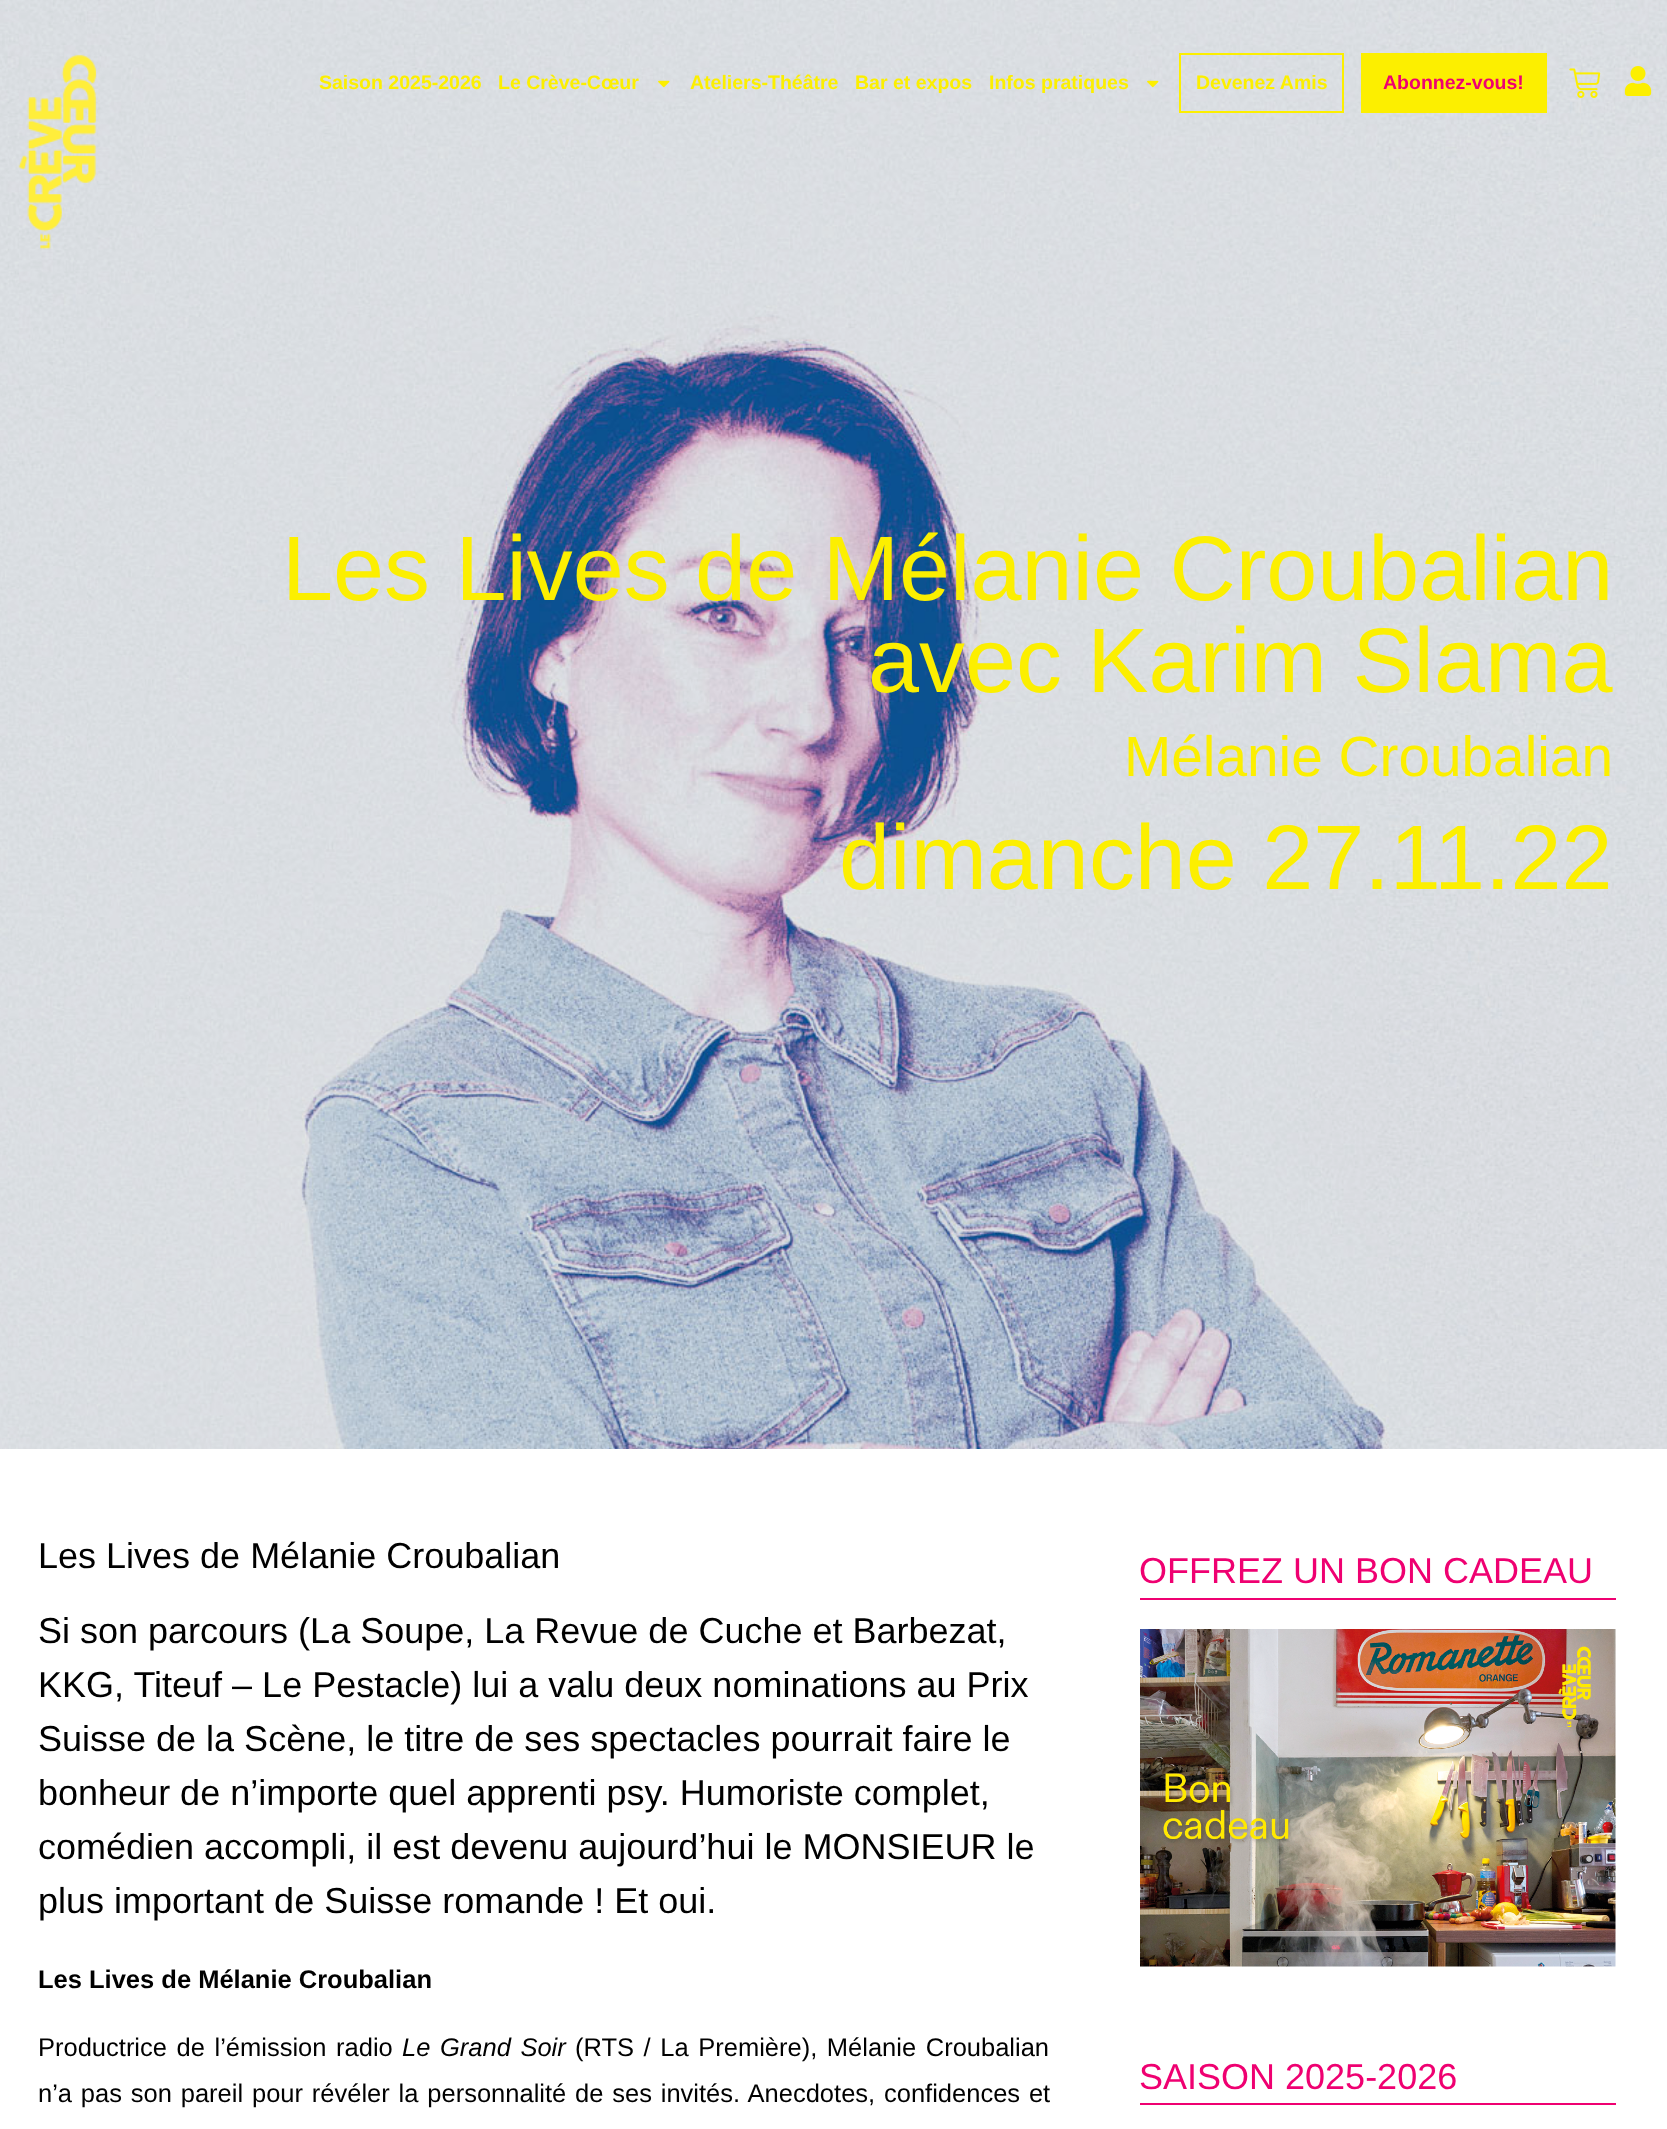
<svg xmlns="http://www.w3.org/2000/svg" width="1667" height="2129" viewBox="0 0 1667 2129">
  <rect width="100%" height="100%" fill="rgb(255,255,255)"/>
  <image x="0" y="0" width="1667" height="1449" href="pic6.png"/>
  <image x="18" y="54" width="79" height="196" href="pic1.png"/>
  <g font-family="Liberation Sans" font-size="19.5" font-weight="bold" fill="rgb(252,239,0)">
    <text x="319" y="89">Saison 2025-2026</text>
    <text x="498" y="89">Le Crève-Cœur</text>
  </g>
  <image x="658" y="80" width="12" height="8" href="pic2.png"/>
  <g font-family="Liberation Sans" font-size="19.5" font-weight="bold" fill="rgb(252,239,0)">
    <text x="690" y="89">Ateliers-Théâtre</text>
    <text x="855" y="89">Bar et expos</text>
    <text x="989" y="89">Infos pratiques</text>
  </g>
  <image x="1147" y="80" width="12" height="8" href="pic3.png"/>
  <rect x="1180" y="54" width="163" height="58" fill="none" stroke="rgb(252,239,0)" stroke-width="2"/>
  <text x="1196" y="89" font-family="Liberation Sans" font-size="19.5" font-weight="bold" fill="rgb(252,239,0)">Devenez Amis</text>
  <rect x="1361" y="53" width="186" height="60" fill="rgb(252,239,0)"/>
  <text x="1383" y="89" font-family="Liberation Sans" font-size="19.5" font-weight="bold" fill="rgb(239,0,113)">Abonnez-vous!</text>
  <image x="1569" y="68" width="32" height="30" href="pic4.png"/>
  <image x="1624" y="66" width="28" height="30" href="pic5.png"/>
  <g font-family="Liberation Sans" font-size="91.75" fill="rgb(252,239,0)">
    <text x="282" y="600">Les Lives de Mélanie Croubalian</text>
    <text x="868" y="692">avec Karim Slama</text>
  </g>
  <text x="1124" y="776" font-family="Liberation Sans" font-size="56.75" fill="rgb(252,239,0)">Mélanie Croubalian</text>
  <text x="839" y="889" font-family="Liberation Sans" font-size="91.75" fill="rgb(252,239,0)">dimanche 27.11.22</text>
  <g font-family="Liberation Sans" font-size="36" fill="rgb(0,0,0)">
    <text x="38" y="1568">Les Lives de Mélanie Croubalian</text>
    <text>
      <tspan x="38" y="1643">Si son parcours (La Soupe, La Revue de Cuche et Barbezat,</tspan>
      <tspan x="38" y="1697">KKG, Titeuf – Le Pestacle) lui a valu deux nominations au Prix</tspan>
      <tspan x="38" y="1751">Suisse de la Scène, le titre de ses spectacles pourrait faire le</tspan>
      <tspan x="38" y="1805">bonheur de n’importe quel apprenti psy. Humoriste complet,</tspan>
      <tspan x="38" y="1859">comédien accompli, il est devenu aujourd’hui le MONSIEUR le</tspan>
      <tspan x="38" y="1913">plus important de Suisse romande ! Et oui.</tspan>
    </text>
  </g>
  <text x="38" y="1988" font-family="Liberation Sans" font-size="25.5" font-weight="bold" fill="rgb(0,0,0)">Les Lives de Mélanie Croubalian</text>
  <text x="38" y="2056" word-spacing="2.5" font-family="Liberation Sans" font-size="25.5" fill="rgb(0,0,0)">Productrice de l’émission radio</text>
  <text x="402" y="2056" word-spacing="2.5" font-family="Liberation Sans" font-size="25.5" font-style="italic" fill="rgb(0,0,0)">Le Grand Soir</text>
  <g font-family="Liberation Sans" font-size="25.5" fill="rgb(0,0,0)">
    <text x="575" y="2056" word-spacing="2.5">(RTS / La Première), Mélanie Croubalian</text>
    <text x="38" y="2102" word-spacing="1.75">n’a pas son pareil pour révéler la personnalité de ses invités. Anecdotes, confidences et</text>
  </g>
  <rect x="1140" y="1598" width="476" height="2" fill="rgb(239,0,113)"/>
  <text x="1139" y="1583" font-family="Liberation Sans" font-size="36" fill="rgb(239,0,113)">OFFREZ UN BON CADEAU</text>
  <image x="1140" y="1629" width="476" height="338" href="pic7.png"/>
  <rect x="1140" y="2103" width="476" height="2" fill="rgb(239,0,113)"/>
  <text x="1139" y="2089" font-family="Liberation Sans" font-size="36" fill="rgb(239,0,113)">SAISON 2025-2026</text>
</svg>
